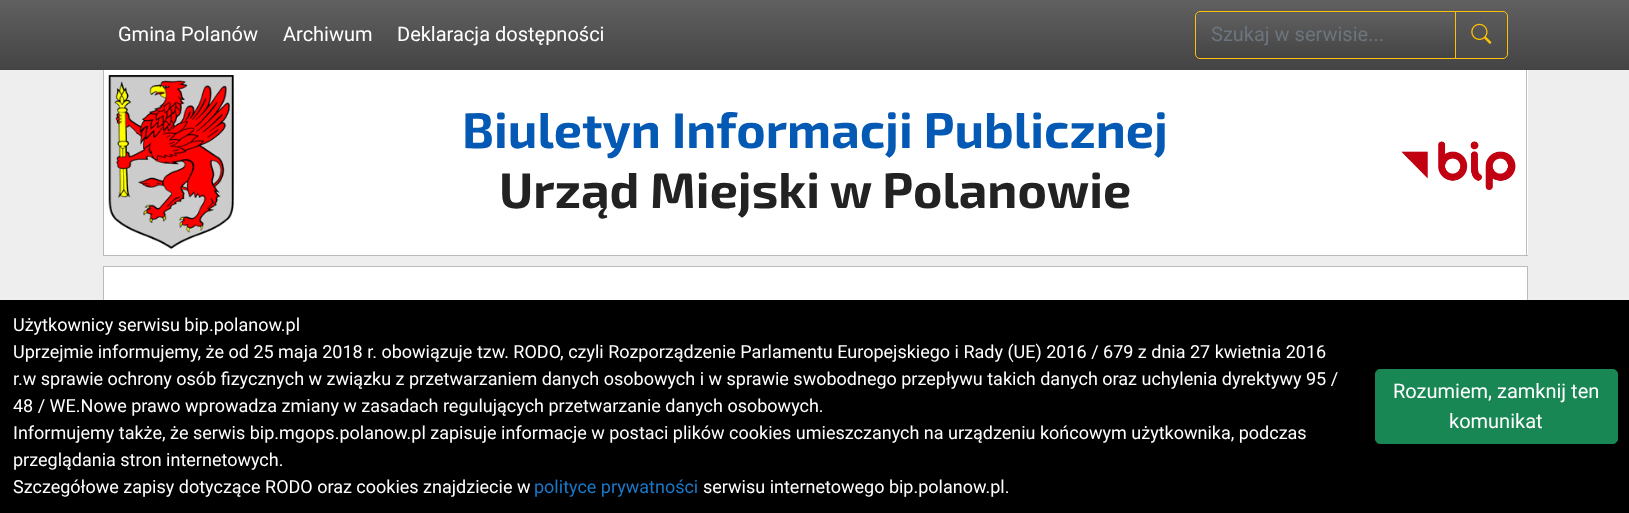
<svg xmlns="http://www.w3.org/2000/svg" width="1629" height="513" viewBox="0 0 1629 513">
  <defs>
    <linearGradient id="g1" gradientUnits="userSpaceOnUse" x1="815" y1="0" x2="815" y2="70"><stop offset="0" stop-color="rgb(96,96,96)"/><stop offset="1" stop-color="rgb(68,68,68)"/></linearGradient>
    <linearGradient id="g2" gradientUnits="userSpaceOnUse" x1="1326" y1="12" x2="1326" y2="58"><stop offset="0" stop-color="rgb(255,255,255)" stop-opacity="0.15"/><stop offset="1" stop-color="rgb(255,255,255)" stop-opacity="0"/></linearGradient>
  </defs>
  <rect width="100%" height="100%" fill="rgb(238,238,238)"/>
  <rect x="0" y="0" width="1629" height="70" fill="url(#g1)"/>
  <g font-family="Roboto" font-size="20" fill="rgb(255,255,255)">
    <text x="118" y="41">Gmina Polanów</text>
    <text x="283" y="41">Archiwum</text>
    <text x="397" y="41">Deklaracja dostępności</text>
  </g>
  <path d="M1200 13H1455V58H1200C1198 58 1196 56 1196 54V17C1196 15 1198 13 1200 13Z" fill="rgb(68,68,68)"/>
  <path d="M1200 13H1455V58H1200C1198 58 1196 56 1196 54V17C1196 15 1198 13 1200 13Z" fill="url(#g2)"/>
  <path d="M1200 11.5H1455.5V58.5H1200C1197.5 58.5 1195.5 56.5 1195.5 54V16C1195.5 13.5 1197.5 11.5 1200 11.5Z" fill="none" stroke="rgb(255,193,7)"/>
  <text x="1211" y="41" font-family="Roboto" font-size="20" fill="rgb(108,117,125)">Szukaj w serwisie...</text>
  <path d="M1455.5 11.5H1503C1505.5 11.5 1507.5 13.5 1507.5 16V54C1507.5 56.5 1505.5 58.5 1503 58.5H1455.5Z" fill="none" stroke="rgb(255,193,7)"/>
  <image x="1471" y="23" width="21" height="21" href="pic1.png"/>
  <rect x="104" y="70" width="1424" height="185" fill="rgb(255,255,255)"/>
  <rect x="1526" y="70" width="1" height="186" fill="rgb(187,187,187)"/>
  <rect x="103" y="255" width="1425" height="1" fill="rgb(187,187,187)"/>
  <rect x="103" y="70" width="1" height="186" fill="rgb(187,187,187)"/>
  <image x="108" y="75" width="126" height="174" href="pic2.png"/>
  <text x="462" y="148" font-family="'Exo 2'" font-size="50" font-weight="bold" fill="rgb(4,89,180)">Biuletyn Informacji Publicznej</text>
  <text x="499" y="208" font-family="'Exo 2'" font-size="50" font-weight="bold" fill="rgb(34,34,34)">Urząd Miejski w Polanowie</text>
  <image x="1401" y="141" width="115" height="49" href="pic3.png"/>
  <rect x="104" y="267" width="1423" height="33" fill="rgb(255,255,255)"/>
  <rect x="103.5" y="266.5" width="1424" height="103" fill="none" stroke="rgb(187,187,187)"/>
  <rect x="0" y="300" width="1629" height="213" fill="rgb(0,0,0)"/>
  <g font-family="Roboto" font-size="18" fill="rgb(255,255,255)">
    <text>
      <tspan x="13" y="331">Użytkownicy serwisu bip.polanow.pl</tspan>
      <tspan x="13" y="358">Uprzejmie informujemy, że od 25 maja 2018 r. obowiązuje tzw. RODO, czyli Rozporządzenie Parlamentu Europejskiego i Rady (UE) 2016 / 679 z dnia 27 kwietnia 2016</tspan>
      <tspan x="13" y="385">r.w sprawie ochrony osób fizycznych w związku z przetwarzaniem danych osobowych i w sprawie swobodnego przepływu takich danych oraz uchylenia dyrektywy 95 /</tspan>
      <tspan x="13" y="412">48 / WE.Nowe prawo wprowadza zmiany w zasadach regulujących przetwarzanie danych osobowych.</tspan>
      <tspan x="13" y="439">Informujemy także, że serwis bip.mgops.polanow.pl zapisuje informacje w postaci plików cookies umieszczanych na urządzeniu końcowym użytkownika, podczas</tspan>
      <tspan x="13" y="466">przeglądania stron internetowych.</tspan>
      <tspan x="13" y="493">Szczegółowe zapisy dotyczące RODO oraz cookies znajdziecie w</tspan>
    </text>
  </g>
  <text x="534" y="493" font-family="Roboto" font-size="18" fill="rgb(25,120,200)">polityce prywatności</text>
  <text x="703" y="493" font-family="Roboto" font-size="18" fill="rgb(255,255,255)">serwisu internetowego bip.polanow.pl.</text>
  <rect x="1375.5" y="369.5" width="242" height="74" rx="4.5" fill="rgb(25,135,84)" stroke="rgb(25,135,84)"/>
  <g font-family="Roboto" font-size="20" fill="rgb(255,255,255)">
    <text x="1393" y="398">Rozumiem, zamknij ten</text>
    <text x="1449" y="428">komunikat</text>
  </g>
</svg>
